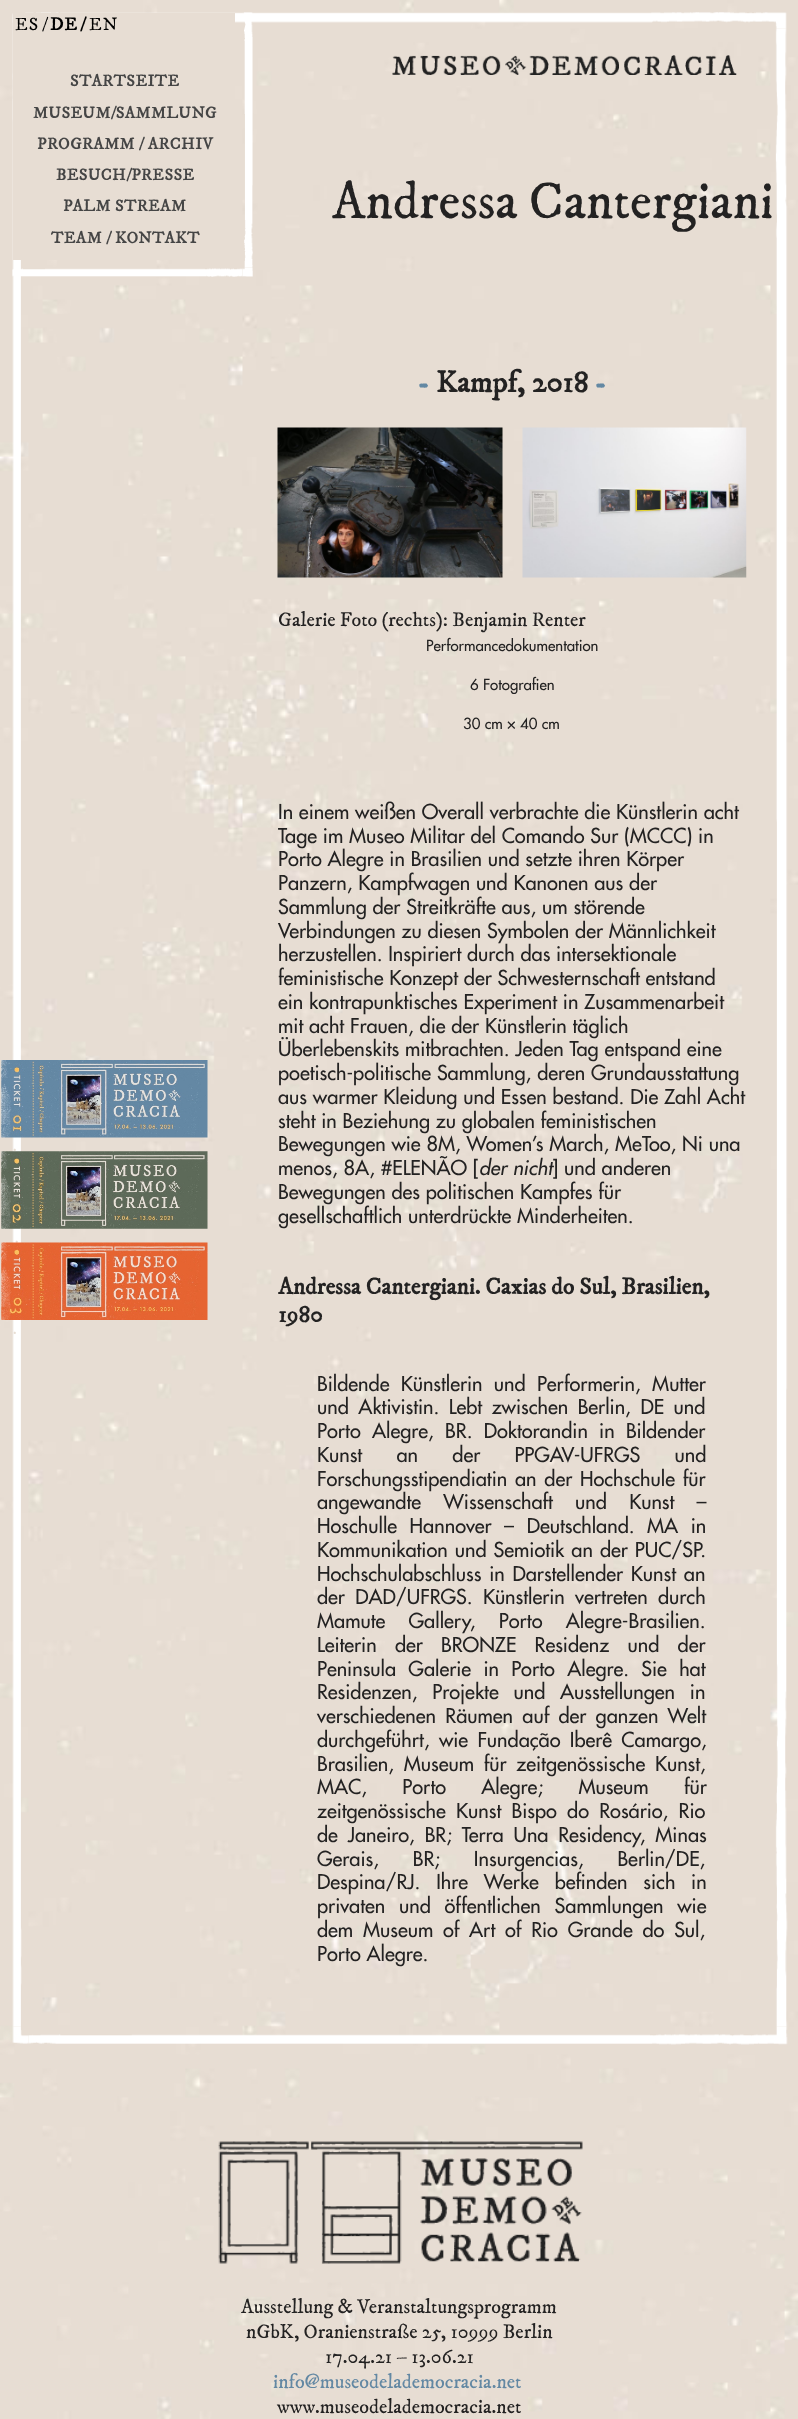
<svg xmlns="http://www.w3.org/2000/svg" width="798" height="2419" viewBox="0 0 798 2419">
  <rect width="100%" height="100%" fill="rgb(255,255,255)"/>
  <image x="0" y="0" width="798" height="2419" href="pic1.png"/>
  <image x="392" y="55" width="345" height="20" href="pic4.png"/>
  <text x="332" y="218" font-family="IM FELL DW Pica" font-size="52.5" fill="rgb(35,34,34)">Andressa Cantergiani</text>
  <text x="417" y="392" font-family="IM FELL DW Pica" font-size="30" font-weight="bold" fill="rgb(99,136,163)">-</text>
  <text x="436" y="392" font-family="IM FELL DW Pica" font-size="30" font-weight="bold" fill="rgb(35,34,34)">Kampf, 2018</text>
  <text x="594" y="392" font-family="IM FELL DW Pica" font-size="30" font-weight="bold" fill="rgb(99,136,163)">-</text>
  <image x="277" y="427" width="226" height="151" href="pic5.png"/>
  <image x="522" y="427" width="225" height="151" href="pic6.png"/>
  <text x="278" y="626" font-family="IM FELL DW Pica" font-size="20" fill="rgb(35,34,34)">Galerie Foto (rechts): Benjamin Renter</text>
  <g font-family="Futura" font-size="15" font-weight="500" fill="rgb(35,34,34)">
    <text x="426" y="651">Performancedokumentation</text>
    <text x="470" y="690">6 Fotografien</text>
    <text x="463" y="729">30 cm × 40 cm</text>
  </g>
  <g font-family="Futura" font-size="20" font-weight="500" fill="rgb(35,34,34)">
    <text>
      <tspan x="278" y="819">In einem weißen Overall verbrachte die Künstlerin acht</tspan>
      <tspan x="278" y="843">Tage im Museo Militar del Comando Sur (MCCC) in</tspan>
      <tspan x="278" y="866">Porto Alegre in Brasilien und setzte ihren Körper</tspan>
      <tspan x="278" y="890">Panzern, Kampfwagen und Kanonen aus der</tspan>
      <tspan x="278" y="914">Sammlung der Streitkräfte aus, um störende</tspan>
      <tspan x="278" y="938">Verbindungen zu diesen Symbolen der Männlichkeit</tspan>
      <tspan x="278" y="961">herzustellen. Inspiriert durch das intersektionale</tspan>
      <tspan x="278" y="985">feministische Konzept der Schwesternschaft entstand</tspan>
      <tspan x="278" y="1009">ein kontrapunktisches Experiment in Zusammenarbeit</tspan>
      <tspan x="278" y="1033">mit acht Frauen, die der Künstlerin täglich</tspan>
      <tspan x="278" y="1056">Überlebenskits mitbrachten. Jeden Tag entspand eine</tspan>
      <tspan x="278" y="1080">poetisch-politische Sammlung, deren Grundausstattung</tspan>
      <tspan x="278" y="1104">aus warmer Kleidung und Essen bestand. Die Zahl Acht</tspan>
      <tspan x="278" y="1128">steht in Beziehung zu globalen feministischen</tspan>
      <tspan x="278" y="1151">Bewegungen wie 8M, Women’s March, MeToo, Ni una</tspan>
      <tspan x="278" y="1175">menos, 8A, #ELENÃO [</tspan>
    </text>
  </g>
  <text x="479" y="1175" font-family="Futura" font-size="20" font-weight="500" font-style="italic" fill="rgb(35,34,34)">der nicht</text>
  <g font-family="Futura" font-size="20" font-weight="500" fill="rgb(35,34,34)">
    <text x="552" y="1175">] und anderen</text>
    <text>
      <tspan x="278" y="1199">Bewegungen des politischen Kampfes für</tspan>
      <tspan x="278" y="1223">gesellschaftlich unterdrückte Minderheiten.</tspan>
    </text>
  </g>
  <g font-family="IM FELL DW Pica" font-size="23.4" font-weight="bold" fill="rgb(35,34,34)">
    <text>
      <tspan x="278" y="1294">Andressa Cantergiani. Caxias do Sul, Brasilien,</tspan>
      <tspan x="278" y="1322">1980</tspan>
    </text>
  </g>
  <g font-family="Futura" font-size="20" font-weight="500" fill="rgb(35,34,34)">
    <text>
      <tspan x="317" y="1391" word-spacing="5.5">Bildende Künstlerin und Performerin, Mutter</tspan>
      <tspan x="317" y="1414" word-spacing="3.75">und Aktivistin. Lebt zwischen Berlin, DE und</tspan>
      <tspan x="317" y="1438" word-spacing="5.5">Porto Alegre, BR. Doktorandin in Bildender</tspan>
      <tspan x="317" y="1462" word-spacing="28.5">Kunst an der PPGAV-UFRGS und</tspan>
      <tspan x="317" y="1486" word-spacing="2">Forschungsstipendiatin an der Hochschule für</tspan>
      <tspan x="317" y="1509" word-spacing="16.5">angewandte Wissenschaft und Kunst –</tspan>
      <tspan x="317" y="1533" word-spacing="6.75">Hoschulle Hannover – Deutschland. MA in</tspan>
      <tspan x="317" y="1557" word-spacing="1.25">Kommunikation und Semiotik an der PUC/SP.</tspan>
      <tspan x="317" y="1581" word-spacing="2">Hochschulabschluss in Darstellender Kunst an</tspan>
      <tspan x="317" y="1604" word-spacing="4.5">der DAD/UFRGS. Künstlerin vertreten durch</tspan>
      <tspan x="317" y="1628" word-spacing="17.5">Mamute Gallery, Porto Alegre-Brasilien.</tspan>
      <tspan x="317" y="1652" word-spacing="12.5">Leiterin der BRONZE Residenz und der</tspan>
      <tspan x="317" y="1676" word-spacing="6.5">Peninsula Galerie in Porto Alegre. Sie hat</tspan>
      <tspan x="317" y="1699" word-spacing="9">Residenzen, Projekte und Ausstellungen in</tspan>
      <tspan x="317" y="1723" word-spacing="3.5">verschiedenen Räumen auf der ganzen Welt</tspan>
      <tspan x="317" y="1747" word-spacing="3.5">durchgeführt, wie Fundação Iberê Camargo,</tspan>
      <tspan x="317" y="1771" word-spacing="4">Brasilien, Museum für zeitgenössische Kunst,</tspan>
      <tspan x="317" y="1794" word-spacing="29.5">MAC, Porto Alegre; Museum für</tspan>
      <tspan x="317" y="1818" word-spacing="4.5">zeitgenössische Kunst Bispo do Rosário, Rio</tspan>
      <tspan x="317" y="1842" word-spacing="4">de Janeiro, BR; Terra Una Residency, Minas</tspan>
      <tspan x="317" y="1866" word-spacing="28">Gerais, BR; Insurgencias, Berlin/DE,</tspan>
      <tspan x="317" y="1889" word-spacing="10">Despina/RJ. Ihre Werke befinden sich in</tspan>
      <tspan x="317" y="1913" word-spacing="8">privaten und öffentlichen Sammlungen wie</tspan>
      <tspan x="317" y="1937" word-spacing="4">dem Museum of Art of Rio Grande do Sul,</tspan>
      <tspan x="317" y="1961">Porto Alegre.</tspan>
    </text>
  </g>
  <image x="12" y="12" width="776" height="2033" href="pic2.png"/>
  <rect x="13" y="13" width="222" height="247" fill="rgb(231,221,211)"/>
  <image x="12" y="12" width="241" height="265" href="pic3.png"/>
  <g font-family="IM FELL DW Pica" font-size="18" letter-spacing="1" fill="rgb(0,0,0)">
    <text x="15" y="30">ES</text>
    <text x="42" y="30">/</text>
  </g>
  <g font-family="IM FELL DW Pica" font-size="18" font-weight="bold" letter-spacing="1" fill="rgb(0,0,0)">
    <text x="50" y="30">DE</text>
    <text x="80" y="30">/</text>
  </g>
  <text x="89" y="30" font-family="IM FELL DW Pica" font-size="18" letter-spacing="1" fill="rgb(0,0,0)">EN</text>
  <g font-family="IM FELL DW Pica" font-size="16.25" font-weight="bold" letter-spacing="0.5" fill="rgb(69,69,69)">
    <text x="70" y="86">STARTSEITE</text>
    <text x="33" y="118">MUSEUM/SAMMLUNG</text>
    <text x="37" y="149">PROGRAMM / ARCHIV</text>
    <text x="56" y="180">BESUCH/PRESSE</text>
    <text x="63" y="211">PALM STREAM</text>
    <text x="51" y="243">TEAM / KONTAKT</text>
  </g>
  <image x="218" y="2141" width="365" height="123" href="pic7.png"/>
  <g font-family="IM FELL DW Pica" font-size="20" fill="rgb(35,34,34)">
    <text x="241" y="2313">Ausstellung &amp; Veranstaltungsprogramm</text>
    <text x="246" y="2338">nGbK, Oranienstraße 25, 10999 Berlin</text>
    <text x="325" y="2363">17.04.21 – 13.06.21</text>
  </g>
  <text x="273" y="2388" font-family="IM FELL DW Pica" font-size="20" fill="rgb(99,136,163)">info@museodelademocracia.net</text>
  <text x="277" y="2413" font-family="IM FELL DW Pica" font-size="20" fill="rgb(35,34,34)">www.museodelademocracia.net</text>
  <image x="1" y="1060" width="207" height="78" href="pic8.png"/>
  <text x="13" y="1151" font-family="IM FELL DW Pica" font-size="15" fill="rgb(232,222,212)">.</text>
  <image x="1" y="1151" width="207" height="78" href="pic9.png"/>
  <text x="15" y="1243" font-family="IM FELL DW Pica" font-size="15" fill="rgb(232,222,212)">.</text>
  <image x="1" y="1242" width="207" height="78" href="pic10.png"/>
  <text x="13" y="1334" font-family="IM FELL DW Pica" font-size="15" fill="rgb(232,222,212)">.</text>
</svg>
